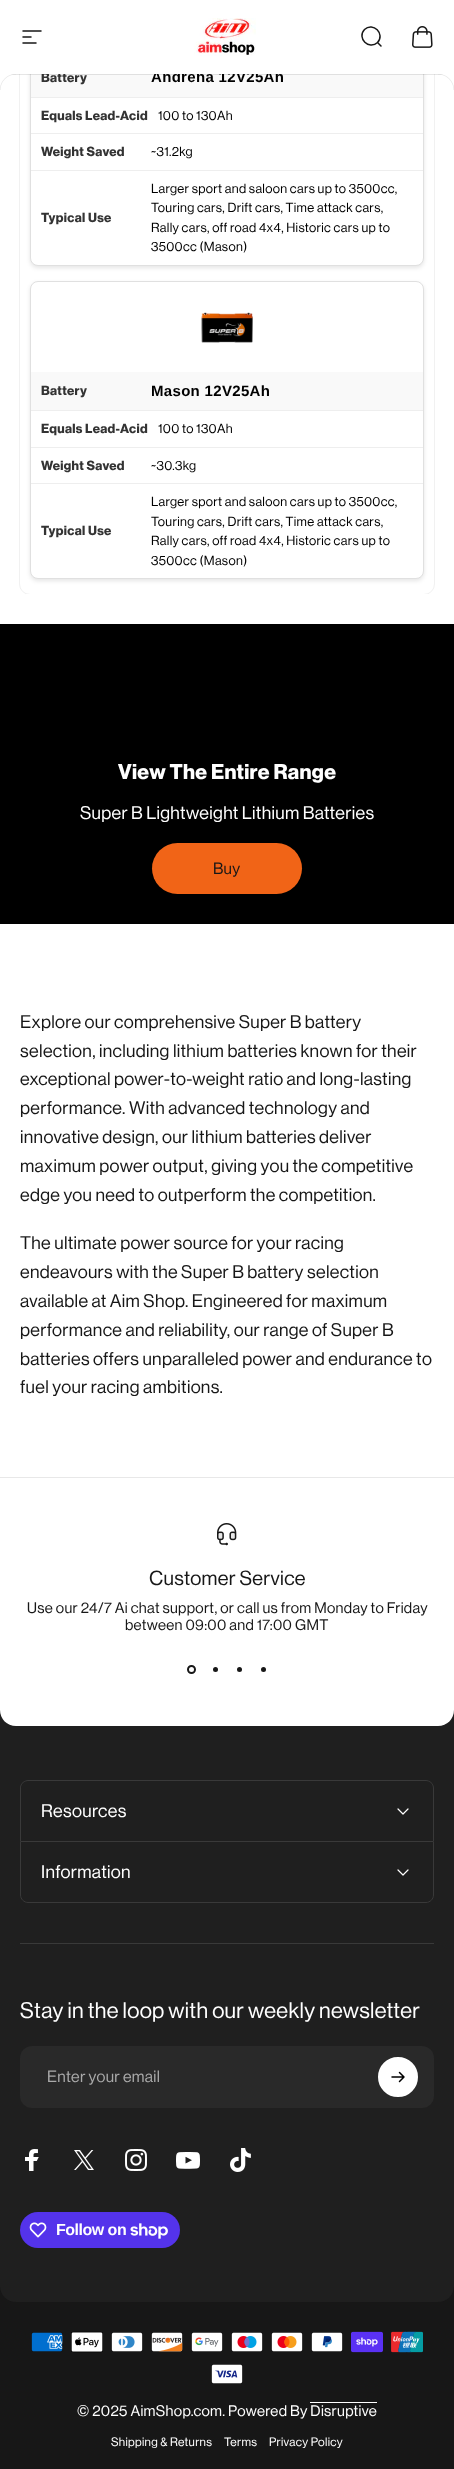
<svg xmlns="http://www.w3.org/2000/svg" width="454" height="2469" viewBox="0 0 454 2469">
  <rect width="100%" height="100%" fill="rgb(255,255,255)"/>
  <rect x="19.5" y="-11.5" width="415" height="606" rx="10.5" fill="none" stroke="rgb(241,241,241)"/>
  <rect x="30" y="-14" width="394" height="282" rx="8" fill="rgba(0,0,0,0.1)" filter="blur(2px)"/>
  <rect x="30.5" y="-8.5" width="393" height="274" rx="7.5" fill="rgb(255,255,255)" stroke="rgb(224,224,224)"/>
  <rect x="31" y="74" width="392" height="23" fill="rgb(249,249,249)"/>
  <text x="41" y="82" font-family="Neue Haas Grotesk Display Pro" font-size="13" font-weight="bold" letter-spacing="0.32" fill="rgb(51,51,51)">Battery</text>
  <text x="151" y="82" font-family="Liberation Sans" font-size="15" font-weight="bold" letter-spacing="0.32" fill="rgb(0,0,0)">Andrena 12V25Ah</text>
  <rect x="19" y="0" width="416" height="74" fill="rgb(255,255,255)"/>
  <path d="M23 31H41M23 37H31M23 43H36" fill="none" stroke="rgb(23,23,23)" stroke-width="1.5" stroke-linecap="round"/>
  <image x="194" y="18" width="62" height="38" href="pic1.png"/>
  <path d="M381 46L377.5 42.5M377.5 42.5C385.5 34 373 21.5 364.5 29.5C356.5 38 369 50.5 377.5 42.5Z" fill="none" stroke="rgb(23,23,23)" stroke-width="1.5" stroke-linecap="round"/>
  <image x="412" y="26" width="21" height="22" href="pic2.png"/>
  <rect x="11" y="74" width="432" height="1" fill="rgba(23,23,23,0.11)"/>
  <image x="0" y="74" width="16" height="16" href="pic3.png"/>
  <image x="438" y="74" width="16" height="16" href="pic4.png"/>
  <rect x="31" y="97" width="392" height="1" fill="rgb(238,238,238)"/>
  <rect x="31" y="133" width="392" height="1" fill="rgb(238,238,238)"/>
  <text x="41" y="120" font-family="Neue Haas Grotesk Display Pro" font-size="13" font-weight="bold" letter-spacing="0.32" fill="rgb(51,51,51)">Equals Lead-Acid</text>
  <text x="158" y="120" font-family="Neue Haas Grotesk Display Pro" font-size="13" font-weight="500" letter-spacing="0.32" fill="rgb(0,0,0)">100 to 130Ah</text>
  <rect x="31" y="170" width="392" height="1" fill="rgb(238,238,238)"/>
  <text x="41" y="156" font-family="Neue Haas Grotesk Display Pro" font-size="13" font-weight="bold" letter-spacing="0.32" fill="rgb(51,51,51)">Weight Saved</text>
  <text x="151" y="156" font-family="Neue Haas Grotesk Display Pro" font-size="13" font-weight="500" letter-spacing="0.32" fill="rgb(0,0,0)">~31.2kg</text>
  <text x="41" y="222" font-family="Neue Haas Grotesk Display Pro" font-size="13" font-weight="bold" letter-spacing="0.32" fill="rgb(51,51,51)">Typical Use</text>
  <g font-family="Neue Haas Grotesk Display Pro" font-size="13" font-weight="500" letter-spacing="0.32" fill="rgb(0,0,0)">
    <text>
      <tspan x="151" y="193">Larger sport and saloon cars up to 3500cc,</tspan>
      <tspan x="151" y="212">Touring cars, Drift cars, Time attack cars,</tspan>
      <tspan x="151" y="232">Rally cars, off road 4x4, Historic cars up to</tspan>
      <tspan x="151" y="251">3500cc (Mason)</tspan>
    </text>
  </g>
  <rect x="30" y="283" width="394" height="298" rx="8" fill="rgba(0,0,0,0.1)" filter="blur(2px)"/>
  <rect x="30.5" y="281.5" width="393" height="297" rx="7.5" fill="rgb(255,255,255)" stroke="rgb(224,224,224)"/>
  <image x="201" y="312" width="52" height="31" href="pic5.png"/>
  <rect x="31" y="372" width="392" height="38" fill="rgb(249,249,249)"/>
  <rect x="31" y="410" width="392" height="1" fill="rgb(238,238,238)"/>
  <text x="41" y="395" font-family="Neue Haas Grotesk Display Pro" font-size="13" font-weight="bold" letter-spacing="0.32" fill="rgb(51,51,51)">Battery</text>
  <text x="151" y="396" font-family="Liberation Sans" font-size="15" font-weight="bold" letter-spacing="0.32" fill="rgb(0,0,0)">Mason 12V25Ah</text>
  <rect x="31" y="447" width="392" height="1" fill="rgb(238,238,238)"/>
  <text x="41" y="433" font-family="Neue Haas Grotesk Display Pro" font-size="13" font-weight="bold" letter-spacing="0.32" fill="rgb(51,51,51)">Equals Lead-Acid</text>
  <text x="158" y="433" font-family="Neue Haas Grotesk Display Pro" font-size="13" font-weight="500" letter-spacing="0.32" fill="rgb(0,0,0)">100 to 130Ah</text>
  <rect x="31" y="483" width="392" height="1" fill="rgb(238,238,238)"/>
  <text x="41" y="470" font-family="Neue Haas Grotesk Display Pro" font-size="13" font-weight="bold" letter-spacing="0.32" fill="rgb(51,51,51)">Weight Saved</text>
  <text x="151" y="470" font-family="Neue Haas Grotesk Display Pro" font-size="13" font-weight="500" letter-spacing="0.32" fill="rgb(0,0,0)">~30.3kg</text>
  <text x="41" y="535" font-family="Neue Haas Grotesk Display Pro" font-size="13" font-weight="bold" letter-spacing="0.32" fill="rgb(51,51,51)">Typical Use</text>
  <g font-family="Neue Haas Grotesk Display Pro" font-size="13" font-weight="500" letter-spacing="0.32" fill="rgb(0,0,0)">
    <text>
      <tspan x="151" y="506">Larger sport and saloon cars up to 3500cc,</tspan>
      <tspan x="151" y="526">Touring cars, Drift cars, Time attack cars,</tspan>
      <tspan x="151" y="545">Rally cars, off road 4x4, Historic cars up to</tspan>
      <tspan x="151" y="565">3500cc (Mason)</tspan>
    </text>
  </g>
  <rect x="26" y="594" width="402" height="1" fill="rgb(255,255,255)"/>
  <rect x="0" y="624" width="454" height="300" fill="rgb(0,0,0)"/>
  <text x="118" y="779" font-family="Neue Haas Grotesk Display Pro" font-size="21" font-weight="bold" letter-spacing="0.32" fill="rgb(255,255,255)">View The Entire Range</text>
  <text x="80" y="819" font-family="Neue Haas Grotesk Display Pro" font-size="18" font-weight="500" letter-spacing="0.32" fill="rgb(255,255,255)">Super B Lightweight Lithium Batteries</text>
  <rect x="152" y="843" width="150" height="51" rx="25.5" fill="rgb(241,100,23)"/>
  <text x="213" y="874" font-family="Neue Haas Grotesk Display Pro" font-size="16" font-weight="500" letter-spacing="0.32" fill="rgb(23,23,23)">Buy</text>
  <g font-family="Neue Haas Grotesk Display Pro" font-size="18" font-weight="500" letter-spacing="0.32" fill="rgb(23,23,23)">
    <text>
      <tspan x="20" y="1028">Explore our comprehensive Super B battery</tspan>
      <tspan x="20" y="1057">selection, including lithium batteries known for their</tspan>
      <tspan x="20" y="1085">exceptional power-to-weight ratio and long-lasting</tspan>
      <tspan x="20" y="1114">performance. With advanced technology and</tspan>
      <tspan x="20" y="1143">innovative design, our lithium batteries deliver</tspan>
      <tspan x="20" y="1172">maximum power output, giving you the competitive</tspan>
      <tspan x="20" y="1201">edge you need to outperform the competition.</tspan>
    </text>
    <text>
      <tspan x="20" y="1249">The ultimate power source for your racing</tspan>
      <tspan x="20" y="1278">endeavours with the Super B battery selection</tspan>
      <tspan x="20" y="1307">available at Aim Shop. Engineered for maximum</tspan>
      <tspan x="20" y="1336">performance and reliability, our range of Super B</tspan>
      <tspan x="20" y="1365">batteries offers unparalleled power and endurance to</tspan>
      <tspan x="20" y="1393">fuel your racing ambitions.</tspan>
    </text>
  </g>
  <rect x="0" y="2286" width="454" height="183" fill="rgb(23,23,23)"/>
  <path d="M0 1710H454V2286C454 2295 447 2302 438 2302H16C7 2302 0 2295 0 2286Z" fill="rgb(31,31,31)"/>
  <path d="M0 1477H454V1710C454 1719 447 1726 438 1726H16C7 1726 0 1719 0 1710Z" fill="rgb(255,255,255)"/>
  <rect x="0" y="1477" width="454" height="1" fill="rgb(232,232,232)"/>
  <image x="217" y="1523" width="20" height="23" href="pic6.png"/>
  <text x="149" y="1585" font-family="Neue Haas Grotesk Display Pro" font-size="20" font-weight="500" letter-spacing="0.32" fill="rgb(23,23,23)">Customer Service</text>
  <g font-family="Neue Haas Grotesk Display Pro" font-size="15" font-weight="500" letter-spacing="0.32" fill="rgb(23,23,23)">
    <text x="27" y="1613">Use our 24/7 Ai chat support, or call us from Monday to Friday</text>
    <text x="125" y="1630">between 09:00 and 17:00 GMT</text>
  </g>
  <circle cx="191.5" cy="1669.5" r="3.5" fill="none" stroke="rgb(23,23,23)" stroke-width="2"/>
  <circle cx="215.5" cy="1669.5" r="2.5" fill="rgb(23,23,23)"/>
  <circle cx="239.5" cy="1669.5" r="2.5" fill="rgb(23,23,23)"/>
  <circle cx="263.5" cy="1669.5" r="2.5" fill="rgb(23,23,23)"/>
  <path d="M28 1780H426C430 1780 434 1784 434 1788V1841H20V1788C20 1784 24 1780 28 1780ZM28 1781H426C430 1781 433 1784 433 1788V1841H21V1788C21 1784 24 1781 28 1781Z" fill="rgb(57,57,57)" fill-rule="evenodd"/>
  <text x="41" y="1817" font-family="Neue Haas Grotesk Display Pro" font-size="18" font-weight="500" letter-spacing="0.32" fill="rgb(255,255,255)">Resources</text>
  <path d="M398 1809L403 1814L408 1809" fill="none" stroke="rgb(255,255,255)" stroke-width="1.2" stroke-linecap="round" stroke-linejoin="round"/>
  <path d="M20.5 1841.5H433.5V1895C433.5 1899 430 1902.5 426 1902.5H28C24 1902.5 20.5 1899 20.5 1895Z" fill="none" stroke="rgb(57,57,57)"/>
  <text x="41" y="1878" font-family="Neue Haas Grotesk Display Pro" font-size="18" font-weight="500" letter-spacing="0.32" fill="rgb(255,255,255)">Information</text>
  <path d="M398 1870L403 1875L408 1870" fill="none" stroke="rgb(255,255,255)" stroke-width="1.2" stroke-linecap="round" stroke-linejoin="round"/>
  <rect x="20" y="1943" width="414" height="1" fill="rgb(57,57,57)"/>
  <text x="20" y="2018" font-family="Neue Haas Grotesk Display Pro" font-size="22" font-weight="500" letter-spacing="0.32" fill="rgb(255,255,255)">Stay in the loop with our weekly newsletter</text>
  <rect x="20" y="2046" width="414" height="62" rx="12" fill="rgb(41,41,41)"/>
  <text x="47" y="2082" font-family="Neue Haas Grotesk Display Pro" font-size="16" font-weight="500" letter-spacing="0.32" fill="rgb(169,169,169)">Enter your email</text>
  <circle cx="398" cy="2077" r="19" fill="rgb(255,255,255)" stroke="rgb(255,255,255)" stroke-width="2"/>
  <path d="M392 2077H404M404 2077L399.5 2072.5M404 2077L399.5 2081.5" fill="none" stroke="rgb(0,0,0)" stroke-width="1.5" stroke-linecap="round" stroke-linejoin="round"/>
  <image x="25" y="2149" width="14" height="22" href="pic7.png"/>
  <image x="74" y="2150" width="20" height="20" href="pic8.png"/>
  <image x="125" y="2149" width="22" height="22" href="pic9.png"/>
  <image x="176" y="2152" width="24" height="17" href="pic10.png"/>
  <image x="230" y="2148" width="21" height="24" href="pic11.png"/>
  <rect x="20" y="2212" width="160" height="36" rx="18" fill="rgb(84,51,235)"/>
  <image x="29" y="2222" width="18" height="16" href="pic12.png"/>
  <text x="56" y="2235" font-family="Liberation Sans" font-size="16" font-weight="bold" letter-spacing="-0.5" fill="rgb(255,255,255)">Follow on</text>
  <image x="130" y="2223" width="38" height="16" href="pic13.png"/>
  <image x="31" y="2332" width="32" height="20" href="pic14.png"/>
  <image x="71" y="2331" width="32" height="22" href="pic15.png"/>
  <image x="111" y="2332" width="32" height="20" href="pic16.png"/>
  <image x="151" y="2332" width="32" height="20" href="pic17.png"/>
  <image x="191" y="2332" width="32" height="20" href="pic18.png"/>
  <image x="231" y="2332" width="32" height="20" href="pic19.png"/>
  <image x="271" y="2332" width="32" height="20" href="pic20.png"/>
  <image x="311" y="2332" width="32" height="20" href="pic21.png"/>
  <image x="351" y="2331" width="32" height="22" href="pic22.png"/>
  <image x="391" y="2331" width="32" height="22" href="pic23.png"/>
  <image x="211" y="2364" width="32" height="20" href="pic24.png"/>
  <rect x="310" y="2402" width="67" height="1" fill="rgb(255,255,255)"/>
  <text x="77" y="2416" font-family="Neue Haas Grotesk Display Pro" font-size="15" font-weight="500" letter-spacing="0.32" fill="rgb(255,255,255)">© 2025 AimShop.com. Powered By Disruptive</text>
  <g font-family="Neue Haas Grotesk Display Pro" font-size="12" font-weight="500" letter-spacing="0.32" fill="rgb(255,255,255)">
    <text x="111" y="2446">Shipping &amp; Returns</text>
    <text x="224" y="2446">Terms</text>
    <text x="269" y="2446">Privacy Policy</text>
  </g>
</svg>
